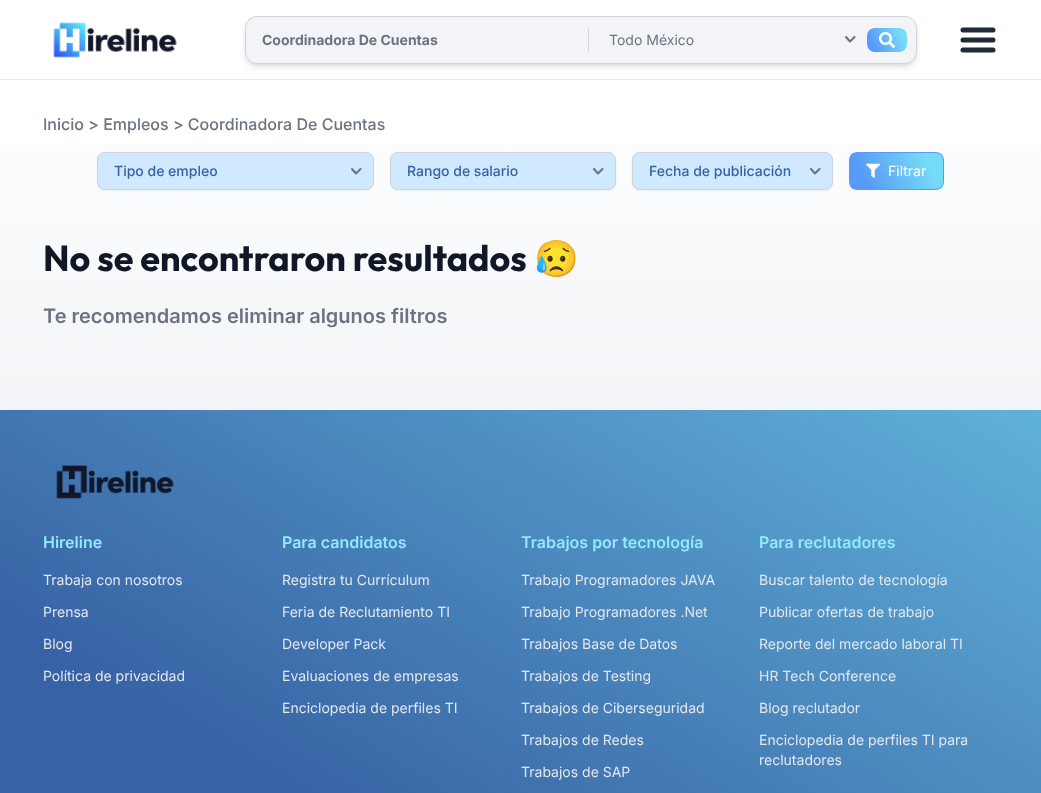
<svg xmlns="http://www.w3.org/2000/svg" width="1041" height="793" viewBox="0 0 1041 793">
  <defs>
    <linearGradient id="g1" gradientUnits="userSpaceOnUse" x1="866" y1="50" x2="908" y2="30"><stop offset="0.17" stop-color="rgb(88,154,247)"/><stop offset="0.83" stop-color="rgb(118,220,246)"/></linearGradient>
    <linearGradient id="g2" gradientUnits="userSpaceOnUse" x1="521" y1="80" x2="521" y2="410"><stop offset="0" stop-color="rgb(255,255,255)"/><stop offset="1" stop-color="rgb(242,244,247)"/></linearGradient>
    <clipPath id="clip1"><rect x="849" y="152" width="95" height="38" rx="8"/></clipPath>
    <linearGradient id="g3" gradientUnits="userSpaceOnUse" x1="852" y1="193" x2="941" y2="149"><stop offset="0.17" stop-color="rgb(88,154,247)"/><stop offset="0.83" stop-color="rgb(118,220,246)"/></linearGradient>
    <linearGradient id="g4" gradientUnits="userSpaceOnUse" x1="268" y1="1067" x2="980" y2="-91"><stop offset="0.17" stop-color="rgb(55,98,164)"/><stop offset="1" stop-color="rgb(118,220,246)"/></linearGradient>
  </defs>
  <rect width="100%" height="100%" fill="rgb(255,255,255)"/>
  <rect x="0" y="79" width="1041" height="1" fill="rgb(228,231,236)"/>
  <image x="53" y="22" width="124" height="36" href="pic1.png"/>
  <rect x="247" y="20" width="668" height="44" rx="10" fill="rgba(0,0,0,0.1)" filter="blur(2px)"/>
  <rect x="246" y="21" width="670" height="46" rx="11" fill="rgba(0,0,0,0.1)" filter="blur(3px)"/>
  <rect x="245.5" y="16.5" width="671" height="47" rx="11.5" fill="rgb(242,244,247)" stroke="rgb(208,213,221)"/>
  <text x="262" y="45" font-family="Inter" font-size="14" font-weight="bold" fill="rgb(107,114,128)">Coordinadora De Cuentas</text>
  <rect x="588" y="28" width="1" height="24" fill="rgb(208,213,221)"/>
  <path d="M846 37L850 41.5L854.5 37" fill="none" stroke="rgb(107,114,128)" stroke-width="2.1" stroke-linecap="round" stroke-linejoin="round"/>
  <text x="609" y="45" font-family="Inter" font-size="14" fill="rgb(107,114,128)">Todo México</text>
  <rect x="867" y="28" width="40" height="24" rx="8" fill="url(#g1)"/>
  <image x="879" y="32" width="16" height="16" href="pic2.png"/>
  <path d="M963 40H993M963 30H993M963 50H993" fill="none" stroke="rgb(31,41,55)" stroke-width="5" stroke-linecap="round" stroke-linejoin="round"/>
  <rect x="0" y="143" width="1041" height="267" fill="url(#g2)"/>
  <text x="43" y="130" font-family="Inter" font-size="16" font-weight="500" fill="rgb(107,114,128)">Inicio &gt; Empleos &gt; Coordinadora De Cuentas</text>
  <rect x="97" y="153" width="277" height="38" rx="8" fill="rgba(0,0,0,0.05)" filter="blur(1px)"/>
  <rect x="97" y="152" width="277" height="38" rx="8" fill="rgb(209,233,255)"/>
  <path d="M352 169L356 173.5L360.5 169" fill="none" stroke="rgb(107,114,128)" stroke-width="2.1" stroke-linecap="round" stroke-linejoin="round"/>
  <rect x="97.5" y="152.5" width="276" height="37" rx="7.5" fill="none" stroke="rgb(208,213,221)"/>
  <text x="114" y="176" font-family="Inter" font-size="14" font-weight="500" fill="rgb(55,98,164)">Tipo de empleo</text>
  <rect x="390" y="153" width="226" height="38" rx="8" fill="rgba(0,0,0,0.05)" filter="blur(1px)"/>
  <rect x="390" y="152" width="226" height="38" rx="8" fill="rgb(209,233,255)"/>
  <path d="M594 169L598 173.5L602.5 169" fill="none" stroke="rgb(107,114,128)" stroke-width="2.1" stroke-linecap="round" stroke-linejoin="round"/>
  <rect x="390.5" y="152.5" width="225" height="37" rx="7.5" fill="none" stroke="rgb(208,213,221)"/>
  <text x="407" y="176" font-family="Inter" font-size="14" font-weight="500" fill="rgb(55,98,164)">Rango de salario</text>
  <rect x="632" y="153" width="201" height="38" rx="8" fill="rgba(0,0,0,0.05)" filter="blur(1px)"/>
  <rect x="632" y="152" width="201" height="38" rx="8" fill="rgb(209,233,255)"/>
  <path d="M811 169L815 173.5L819.5 169" fill="none" stroke="rgb(107,114,128)" stroke-width="2.1" stroke-linecap="round" stroke-linejoin="round"/>
  <rect x="632.5" y="152.5" width="200" height="37" rx="7.5" fill="none" stroke="rgb(208,213,221)"/>
  <text x="649" y="176" font-family="Inter" font-size="14" font-weight="500" fill="rgb(55,98,164)">Fecha de publicación</text>
  <g clip-path="url(#clip1)">
    <rect x="850" y="153" width="93" height="36" fill="url(#g3)"/>
  </g>
  <rect x="849.5" y="152.5" width="94" height="37" rx="7.5" fill="none" stroke="rgb(88,154,247)"/>
  <image x="866" y="163" width="14" height="15" href="pic3.png"/>
  <text x="888" y="176" font-family="Inter" font-size="14" fill="rgb(255,255,255)">Filtrar</text>
  <text x="43" y="271" font-family="Outfit" font-size="36" font-weight="bold" fill="rgb(16,24,40)">No se encontraron resultados</text>
  <text x="534" y="271" font-family="Noto Color Emoji" font-size="36" font-weight="bold" fill="rgb(16,24,40)">😥</text>
  <text x="43" y="323" font-family="Inter" font-size="20" font-weight="600" fill="rgb(107,114,128)">Te recomendamos eliminar algunos filtros</text>
  <rect x="0" y="410" width="1041" height="383" fill="url(#g4)"/>
  <image x="56" y="465" width="118" height="34" href="pic4.png"/>
  <text x="43" y="548" font-family="Inter" font-size="16" font-weight="600" fill="rgb(146,233,255)">Hireline</text>
  <g font-family="Inter" font-size="14" fill="rgb(228,231,236)">
    <text x="43" y="585">Trabaja con nosotros</text>
    <text x="43" y="617">Prensa</text>
    <text x="43" y="649">Blog</text>
    <text x="43" y="681">Política de privacidad</text>
  </g>
  <text x="282" y="548" font-family="Inter" font-size="16" font-weight="600" fill="rgb(146,233,255)">Para candidatos</text>
  <g font-family="Inter" font-size="14" fill="rgb(228,231,236)">
    <text x="282" y="585">Registra tu Currículum</text>
    <text x="282" y="617">Feria de Reclutamiento TI</text>
    <text x="282" y="649">Developer Pack</text>
    <text x="282" y="681">Evaluaciones de empresas</text>
    <text x="282" y="713">Enciclopedia de perfiles TI</text>
  </g>
  <text x="521" y="548" font-family="Inter" font-size="16" font-weight="600" fill="rgb(146,233,255)">Trabajos por tecnología</text>
  <g font-family="Inter" font-size="14" fill="rgb(228,231,236)">
    <text x="521" y="585">Trabajo Programadores JAVA</text>
    <text x="521" y="617">Trabajo Programadores .Net</text>
    <text x="521" y="649">Trabajos Base de Datos</text>
    <text x="521" y="681">Trabajos de Testing</text>
    <text x="521" y="713">Trabajos de Ciberseguridad</text>
    <text x="521" y="745">Trabajos de Redes</text>
    <text x="521" y="777">Trabajos de SAP</text>
  </g>
  <text x="759" y="548" font-family="Inter" font-size="16" font-weight="600" fill="rgb(146,233,255)">Para reclutadores</text>
  <g font-family="Inter" font-size="14" fill="rgb(228,231,236)">
    <text x="759" y="585">Buscar talento de tecnología</text>
    <text x="759" y="617">Publicar ofertas de trabajo</text>
    <text x="759" y="649">Reporte del mercado laboral TI</text>
    <text x="759" y="681">HR Tech Conference</text>
    <text x="759" y="713">Blog reclutador</text>
    <text>
      <tspan x="759" y="745">Enciclopedia de perfiles TI para</tspan>
      <tspan x="759" y="765">reclutadores</tspan>
    </text>
  </g>
</svg>
